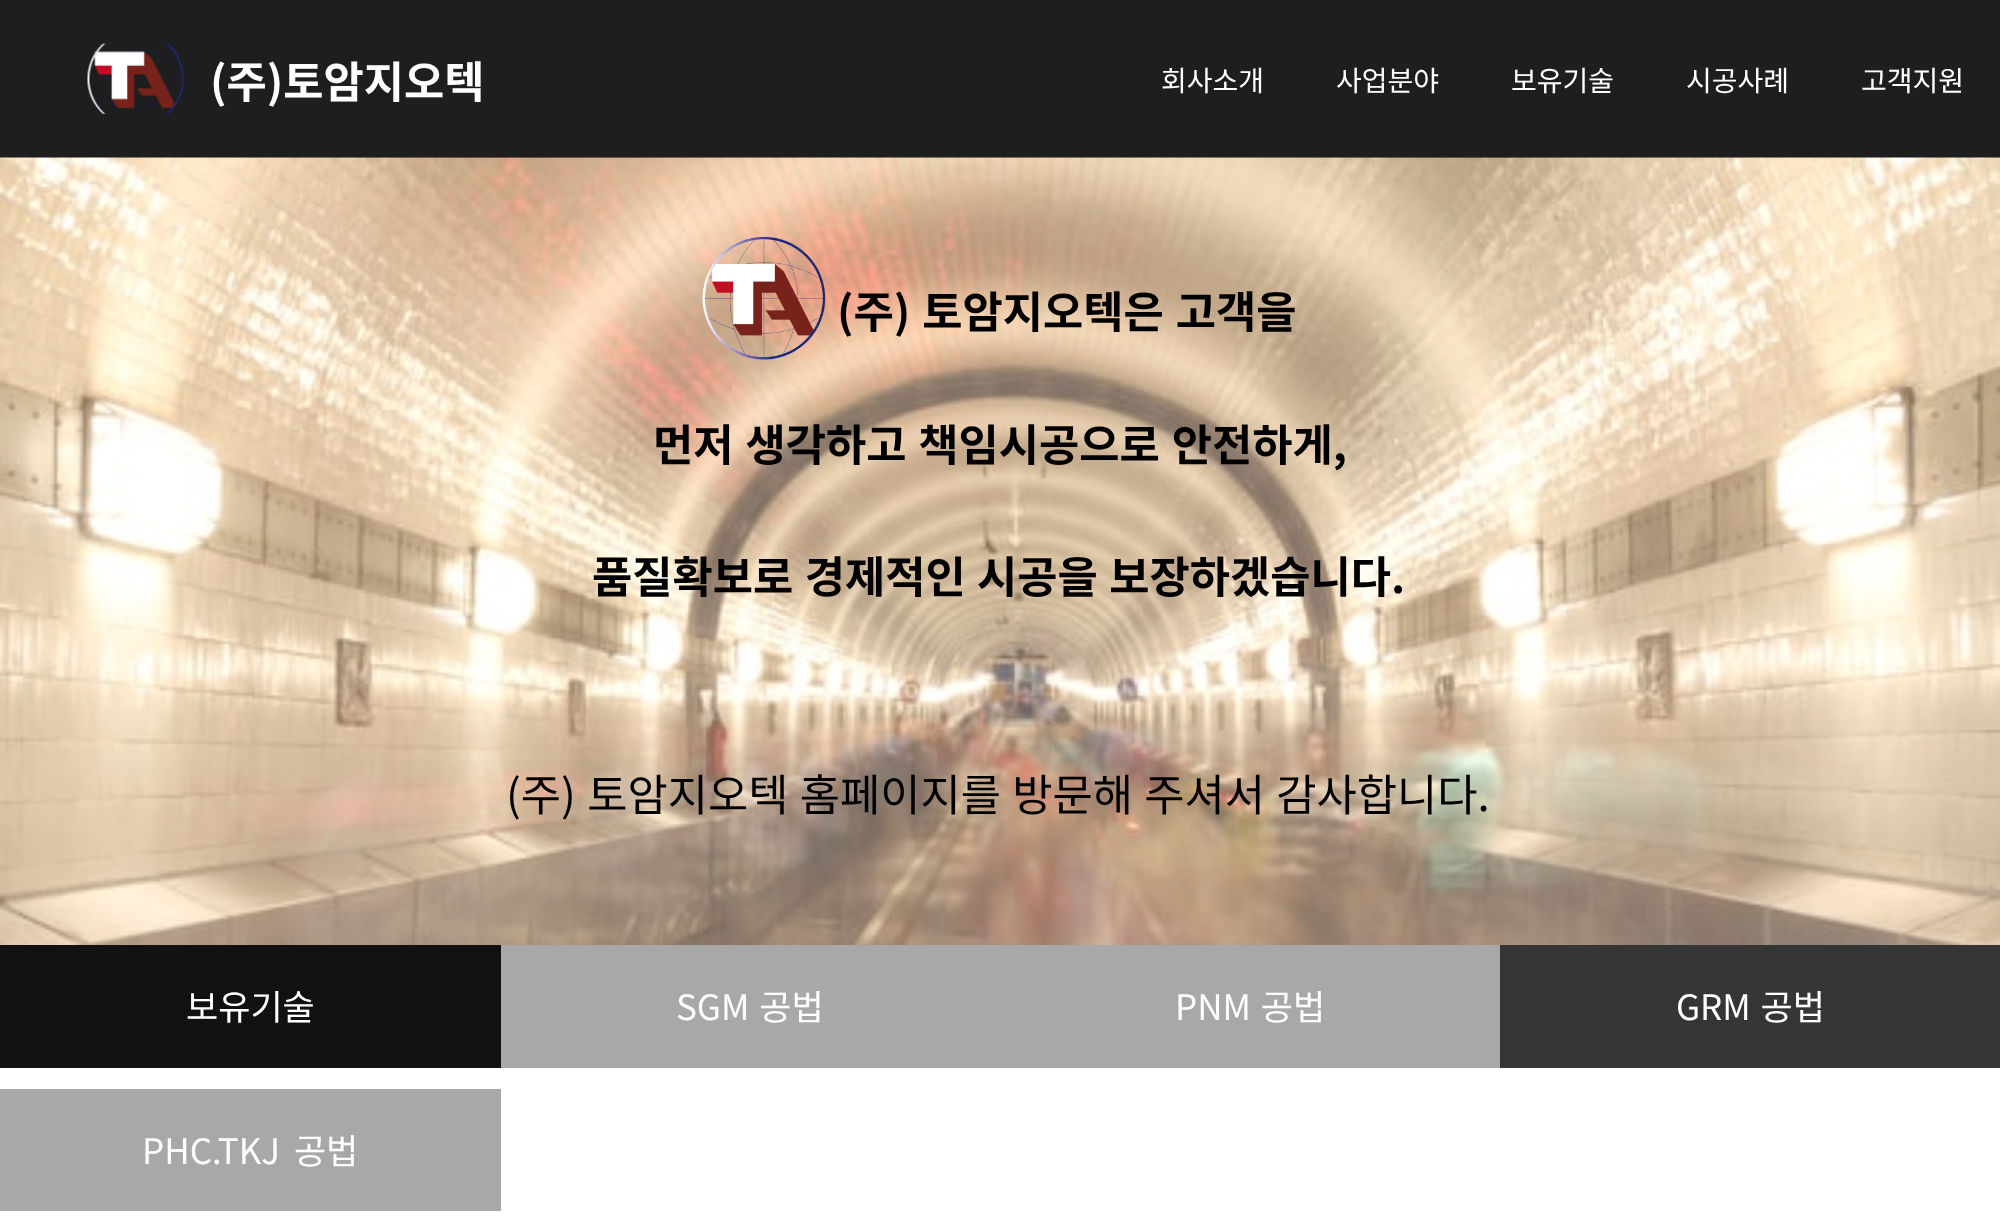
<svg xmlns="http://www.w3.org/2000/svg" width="2000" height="1230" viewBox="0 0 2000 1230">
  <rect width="100%" height="100%" fill="rgb(255,255,255)"/>
  <rect x="0" y="0" width="2000" height="158" fill="rgb(30,30,30)"/>
  <image x="87" y="43" width="97" height="71" href="pic1.png"/>
  <text x="210" y="98" font-family="Noto Sans KR" font-size="43.75" font-weight="bold" fill="rgb(255,255,255)">(주)토암지오텍</text>
  <g font-family="Noto Sans KR" font-size="28" fill="rgb(255,255,255)">
    <text x="1161" y="91">회사소개</text>
    <text x="1336" y="91">사업분야</text>
    <text x="1511" y="91">보유기술</text>
    <text x="1686" y="91">시공사례</text>
    <text x="1861" y="91">고객지원</text>
  </g>
  <image x="0" y="157" width="2000" height="788" href="pic2.png"/>
  <image x="702" y="236" width="124" height="124" href="pic3.png"/>
  <g font-family="Noto Sans KR" font-size="43.75" font-weight="bold" fill="rgb(0,0,0)">
    <text x="837" y="328" word-spacing="2">(주) 토암지오텍은 고객을</text>
    <text x="653" y="461" word-spacing="2">먼저 생각하고 책임시공으로 안전하게,</text>
    <text x="592" y="593" word-spacing="1.5">품질확보로 경제적인 시공을 보장하겠습니다.</text>
  </g>
  <text x="506" y="811" word-spacing="1.5" font-family="Noto Sans KR" font-size="43.75" fill="rgb(0,0,0)">(주) 토암지오텍 홈페이지를 방문해 주셔서 감사합니다.</text>
  <rect x="0" y="945" width="501" height="123" fill="rgb(17,17,17)"/>
  <text x="186" y="1020" font-family="Noto Sans KR" font-size="35" fill="rgb(255,255,255)">보유기술</text>
  <rect x="501" y="945" width="999" height="123" fill="rgb(168,168,168)"/>
  <g font-family="Noto Sans KR" font-size="35" fill="rgb(255,255,255)">
    <text x="676" y="1020" word-spacing="2">SGM 공법</text>
    <text x="1175" y="1020" word-spacing="2">PNM 공법</text>
  </g>
  <rect x="1500" y="945" width="500" height="123" fill="rgb(53,53,53)"/>
  <text x="1676" y="1020" word-spacing="2" font-family="Noto Sans KR" font-size="35" fill="rgb(255,255,255)">GRM 공법</text>
  <rect x="0" y="1089" width="501" height="122" fill="rgb(168,168,168)"/>
  <text x="142" y="1164" word-spacing="6" font-family="Noto Sans KR" font-size="35" fill="rgb(255,255,255)">PHC.TKJ 공법</text>
</svg>
